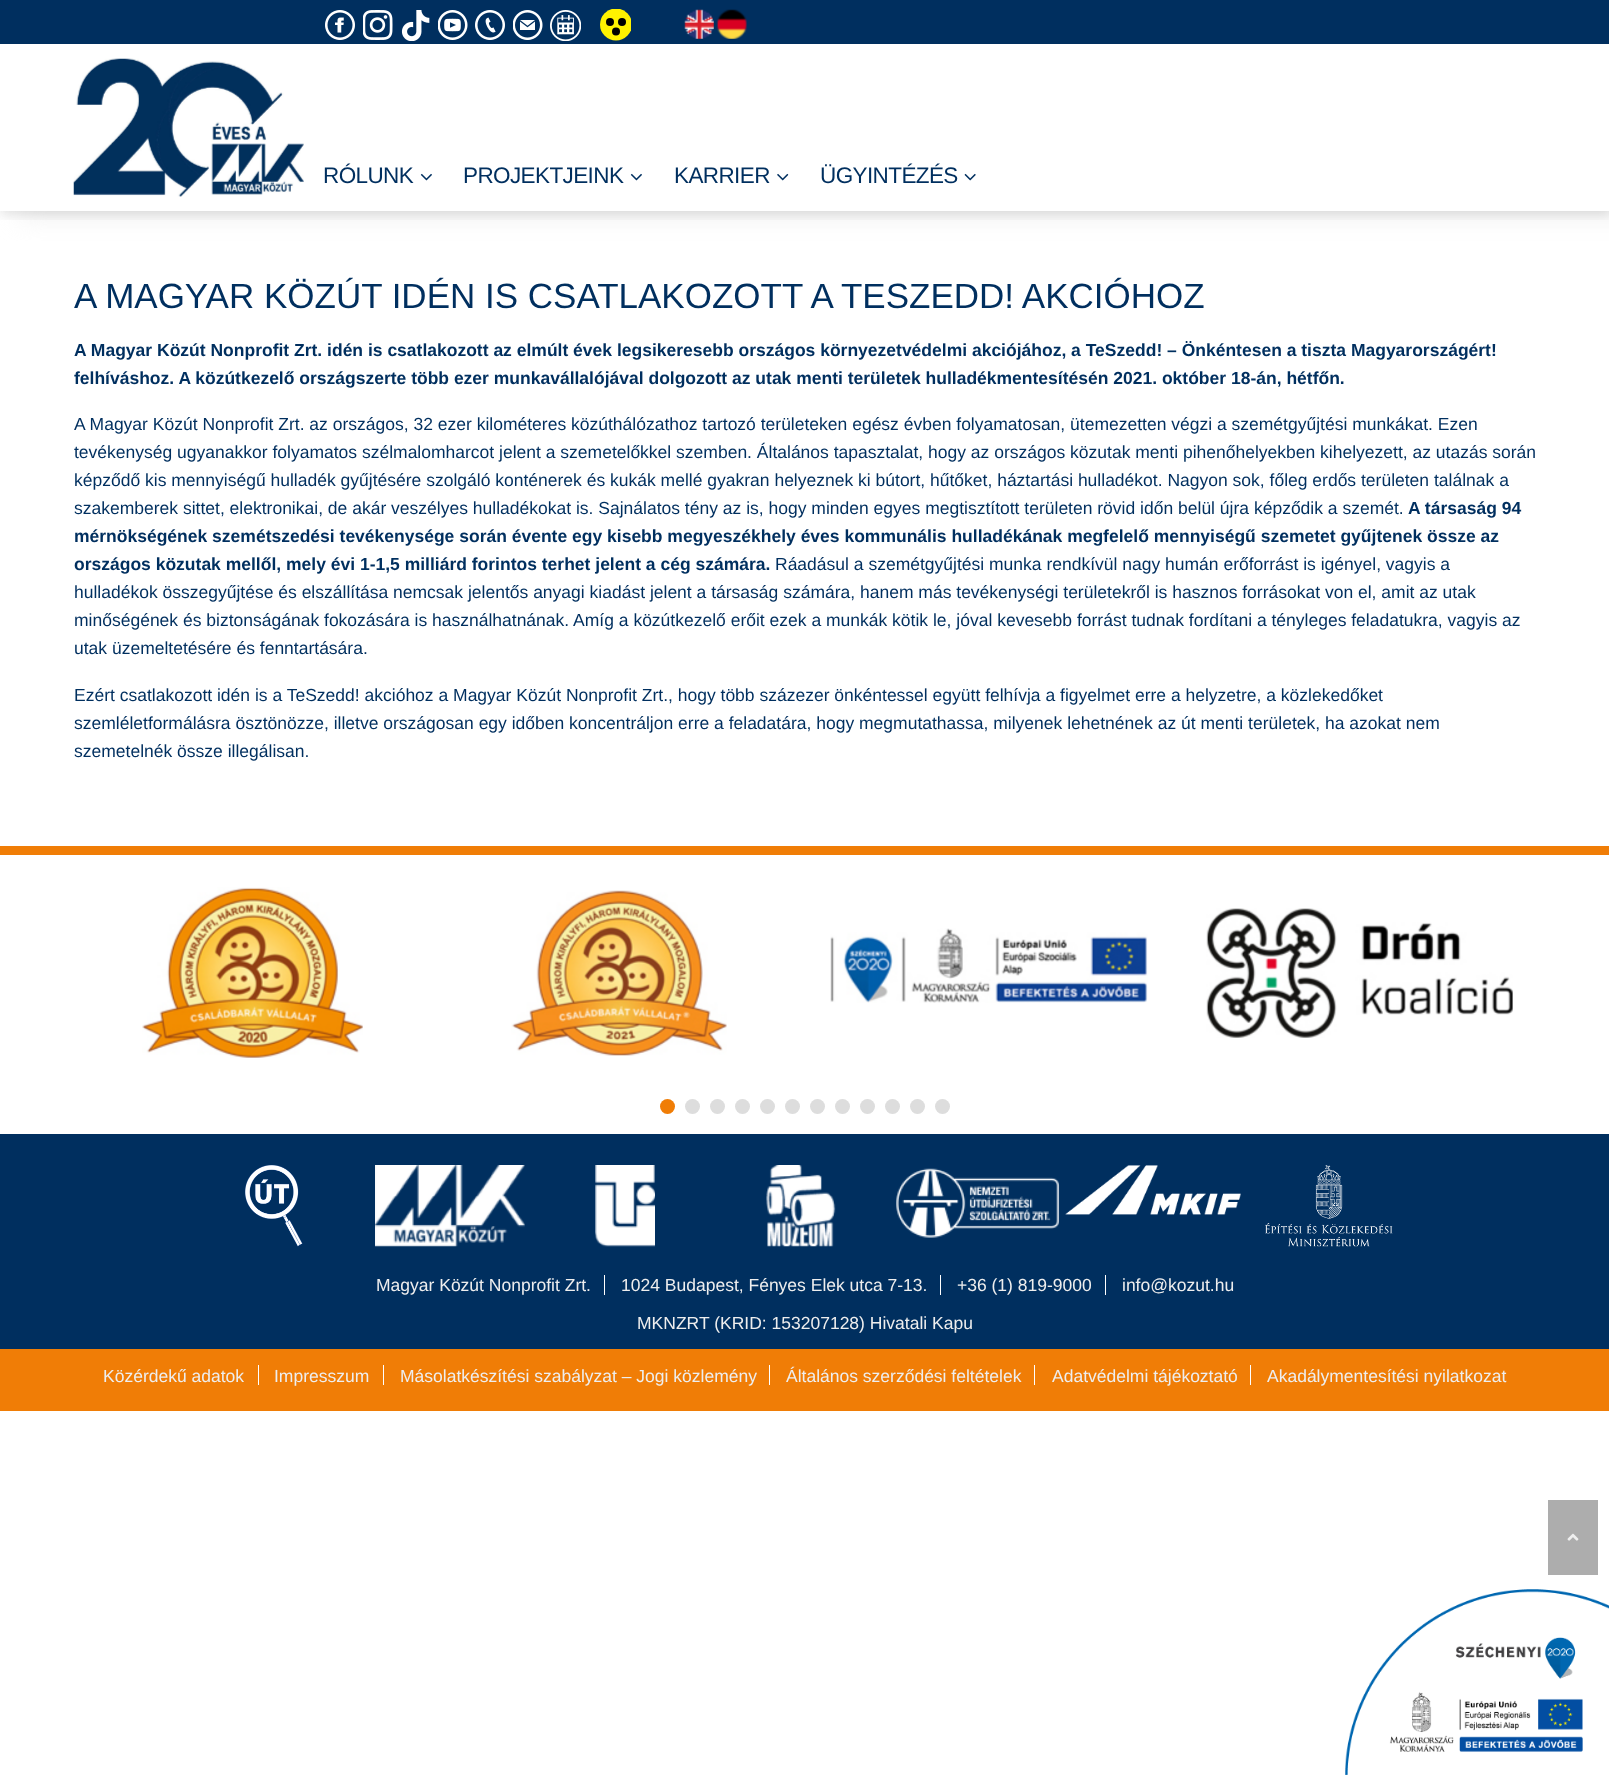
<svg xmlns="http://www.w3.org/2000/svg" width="1609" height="1775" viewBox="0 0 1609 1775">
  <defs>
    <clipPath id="clip1"><rect x="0" y="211" width="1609" height="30"/></clipPath>
    <clipPath id="clip2"><rect x="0" y="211" width="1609" height="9"/></clipPath>
    <clipPath id="clip3"><rect x="600" y="9" width="31" height="32"/></clipPath>
  </defs>
  <rect width="100%" height="100%" fill="rgb(255,255,255)"/>
  <g clip-path="url(#clip1)">
    <rect x="19" y="38" width="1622" height="180" fill="rgba(230,230,230,0.6)" filter="blur(12.5px)"/>
  </g>
  <g clip-path="url(#clip2)">
    <rect x="0" y="48" width="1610" height="167" fill="rgba(0,0,0,0.1)" filter="blur(6px)"/>
  </g>
  <rect x="0" y="0" width="1609" height="44" fill="rgb(0,47,95)"/>
  <image x="325" y="10" width="30" height="30" href="pic1.png"/>
  <image x="363" y="10" width="30" height="30" href="pic2.png"/>
  <image x="401" y="10" width="29" height="31" href="pic3.png"/>
  <image x="438" y="10" width="30" height="30" href="pic4.png"/>
  <image x="475" y="10" width="30" height="30" href="pic5.png"/>
  <image x="513" y="10" width="30" height="30" href="pic6.png"/>
  <image x="550" y="10" width="31" height="31" href="pic7.png"/>
  <g clip-path="url(#clip3)">
    <circle cx="616" cy="24.5" r="16" fill="rgb(255,242,0)"/>
  </g>
  <circle cx="610" cy="22" r="4" fill="rgb(0,0,0)"/>
  <circle cx="622" cy="22" r="4" fill="rgb(0,0,0)"/>
  <circle cx="616" cy="31.5" r="4" fill="rgb(0,0,0)"/>
  <image x="684" y="9" width="30" height="30" href="pic8.png"/>
  <image x="716" y="9" width="31" height="30" href="pic9.png"/>
  <image x="1345" y="1589" width="264" height="186" href="pic10.png"/>
  <image x="73" y="58" width="231" height="139" href="pic11.png"/>
  <text x="323" y="183" font-family="Liberation Sans" font-size="22.5" letter-spacing="-0.6" fill="rgb(0,47,95)">RÓLUNK</text>
  <image x="420" y="173" width="12" height="8" href="pic12.png"/>
  <text x="463" y="183" font-family="Liberation Sans" font-size="22.5" letter-spacing="-0.6" fill="rgb(0,47,95)">PROJEKTJEINK</text>
  <image x="630" y="173" width="12" height="8" href="pic12.png"/>
  <text x="674" y="183" font-family="Liberation Sans" font-size="22.5" letter-spacing="-0.6" fill="rgb(0,47,95)">KARRIER</text>
  <image x="777" y="173" width="12" height="8" href="pic13.png"/>
  <text x="820" y="183" font-family="Liberation Sans" font-size="22.5" letter-spacing="-0.6" fill="rgb(0,47,95)">ÜGYINTÉZÉS</text>
  <image x="964" y="173" width="12" height="8" href="pic14.png"/>
  <text x="74" y="308" font-family="Liberation Sans" font-size="35" fill="rgb(0,47,95)">A MAGYAR KÖZÚT IDÉN IS CSATLAKOZOTT A TESZEDD! AKCIÓHOZ</text>
  <g font-family="Liberation Sans" font-size="17.5" font-weight="bold" fill="rgb(0,47,95)">
    <text>
      <tspan x="74" y="356">A Magyar Közút Nonprofit Zrt. idén is csatlakozott az elmúlt évek legsikeresebb országos környezetvédelmi akciójához, a TeSzedd! – Önkéntesen a tiszta Magyarországért!</tspan>
      <tspan x="74" y="384">felhíváshoz. A közútkezelő országszerte több ezer munkavállalójával dolgozott az utak menti területek hulladékmentesítésén 2021. október 18-án, hétfőn.</tspan>
    </text>
  </g>
  <g font-family="Liberation Sans" font-size="17.5" fill="rgb(0,47,95)">
    <text>
      <tspan x="74" y="430">A Magyar Közút Nonprofit Zrt. az országos, 32 ezer kilométeres közúthálózathoz tartozó területeken egész évben folyamatosan, ütemezetten végzi a szemétgyűjtési munkákat. Ezen</tspan>
      <tspan x="74" y="458">tevékenység ugyanakkor folyamatos szélmalomharcot jelent a szemetelőkkel szemben. Általános tapasztalat, hogy az országos közutak menti pihenőhelyekben kihelyezett, az utazás során</tspan>
      <tspan x="74" y="486">képződő kis mennyiségű hulladék gyűjtésére szolgáló konténerek és kukák mellé gyakran helyeznek ki bútort, hűtőket, háztartási hulladékot. Nagyon sok, főleg erdős területen találnak a</tspan>
      <tspan x="74" y="514">szakemberek sittet, elektronikai, de akár veszélyes hulladékokat is. Sajnálatos tény az is, hogy minden egyes megtisztított területen rövid időn belül újra képződik a szemét.</tspan>
    </text>
  </g>
  <g font-family="Liberation Sans" font-size="17.5" font-weight="bold" fill="rgb(0,47,95)">
    <text x="1408" y="514">A társaság 94</text>
    <text>
      <tspan x="74" y="542">mérnökségének szemétszedési tevékenysége során évente egy kisebb megyeszékhely éves kommunális hulladékának megfelelő mennyiségű szemetet gyűjtenek össze az</tspan>
      <tspan x="74" y="570">országos közutak mellől, mely évi 1-1,5 milliárd forintos terhet jelent a cég számára.</tspan>
    </text>
  </g>
  <g font-family="Liberation Sans" font-size="17.5" fill="rgb(0,47,95)">
    <text x="775" y="570">Ráadásul a szemétgyűjtési munka rendkívül nagy humán erőforrást is igényel, vagyis a</text>
    <text>
      <tspan x="74" y="598">hulladékok összegyűjtése és elszállítása nemcsak jelentős anyagi kiadást jelent a társaság számára, hanem más tevékenységi területekről is hasznos forrásokat von el, amit az utak</tspan>
      <tspan x="74" y="626">minőségének és biztonságának fokozására is használhatnának. Amíg a közútkezelő erőit ezek a munkák kötik le, jóval kevesebb forrást tudnak fordítani a tényleges feladatukra, vagyis az</tspan>
      <tspan x="74" y="654">utak üzemeltetésére és fenntartására.</tspan>
    </text>
    <text>
      <tspan x="74" y="701">Ezért csatlakozott idén is a TeSzedd! akcióhoz a Magyar Közút Nonprofit Zrt., hogy több százezer önkéntessel együtt felhívja a figyelmet erre a helyzetre, a közlekedőket</tspan>
      <tspan x="74" y="729">szemléletformálásra ösztönözze, illetve országosan egy időben koncentráljon erre a feladatára, hogy megmutathassa, milyenek lehetnének az út menti területek, ha azokat nem</tspan>
      <tspan x="74" y="757">szemetelnék össze illegálisan.</tspan>
    </text>
  </g>
  <rect x="0" y="846" width="1609" height="9" fill="rgb(240,125,6)"/>
  <image x="142" y="887" width="221" height="171" href="pic15.png"/>
  <image x="511" y="890" width="216" height="166" href="pic16.png"/>
  <image x="830" y="928" width="318" height="75" href="pic17.png"/>
  <image x="1206" y="908" width="307" height="130" href="pic18.png"/>
  <circle cx="667.5" cy="1106.5" r="7.5" fill="rgb(240,125,6)"/>
  <circle cx="692.5" cy="1106.5" r="7.5" fill="rgb(221,221,221)"/>
  <circle cx="717.5" cy="1106.5" r="7.5" fill="rgb(221,221,221)"/>
  <circle cx="742.5" cy="1106.5" r="7.5" fill="rgb(221,221,221)"/>
  <circle cx="767.5" cy="1106.5" r="7.5" fill="rgb(221,221,221)"/>
  <circle cx="792.5" cy="1106.5" r="7.5" fill="rgb(221,221,221)"/>
  <circle cx="817.5" cy="1106.5" r="7.5" fill="rgb(221,221,221)"/>
  <circle cx="842.5" cy="1106.5" r="7.5" fill="rgb(221,221,221)"/>
  <circle cx="867.5" cy="1106.5" r="7.5" fill="rgb(221,221,221)"/>
  <circle cx="892.5" cy="1106.5" r="7.5" fill="rgb(221,221,221)"/>
  <circle cx="917.5" cy="1106.5" r="7.5" fill="rgb(221,221,221)"/>
  <circle cx="942.5" cy="1106.5" r="7.5" fill="rgb(221,221,221)"/>
  <rect x="0" y="1134" width="1609" height="215" fill="rgb(0,47,95)"/>
  <image x="245" y="1165" width="58" height="82" href="pic19.png"/>
  <image x="375" y="1165" width="150" height="82" href="pic20.png"/>
  <image x="595" y="1165" width="60" height="82" href="pic21.png"/>
  <image x="766" y="1165" width="70" height="82" href="pic22.png"/>
  <image x="896" y="1168" width="164" height="70" href="pic23.png"/>
  <image x="1065" y="1165" width="176" height="50" href="pic24.png"/>
  <image x="1265" y="1165" width="128" height="82" href="pic25.png"/>
  <text x="376" y="1291" font-family="Liberation Sans" font-size="17.5" fill="rgb(238,238,238)">Magyar Közút Nonprofit Zrt.</text>
  <rect x="604" y="1275" width="1" height="20" fill="rgb(255,255,255)"/>
  <text x="621" y="1291" font-family="Liberation Sans" font-size="17.5" fill="rgb(238,238,238)">1024 Budapest, Fényes Elek utca 7-13.</text>
  <rect x="940" y="1275" width="1" height="20" fill="rgb(255,255,255)"/>
  <text x="957" y="1291" font-family="Liberation Sans" font-size="17.5" fill="rgb(238,238,238)">+36 (1) 819-9000</text>
  <rect x="1105" y="1275" width="1" height="20" fill="rgb(255,255,255)"/>
  <g font-family="Liberation Sans" font-size="17.5" fill="rgb(238,238,238)">
    <text x="1122" y="1291">info@kozut.hu</text>
    <text x="637" y="1329">MKNZRT (KRID: 153207128) Hivatali Kapu</text>
  </g>
  <rect x="0" y="1349" width="1609" height="62" fill="rgb(240,125,6)"/>
  <text x="103" y="1382" font-family="Liberation Sans" font-size="17.5" fill="rgb(238,238,238)">Közérdekű adatok</text>
  <rect x="258" y="1365" width="1" height="20" fill="rgb(255,255,255)"/>
  <text x="274" y="1382" font-family="Liberation Sans" font-size="17.5" fill="rgb(238,238,238)">Impresszum</text>
  <rect x="383" y="1365" width="1" height="20" fill="rgb(255,255,255)"/>
  <text x="400" y="1382" font-family="Liberation Sans" font-size="17.5" fill="rgb(238,238,238)">Másolatkészítési szabályzat – Jogi közlemény</text>
  <rect x="769" y="1365" width="1" height="20" fill="rgb(255,255,255)"/>
  <text x="786" y="1382" font-family="Liberation Sans" font-size="17.5" fill="rgb(238,238,238)">Általános szerződési feltételek</text>
  <rect x="1034" y="1365" width="1" height="20" fill="rgb(255,255,255)"/>
  <text x="1052" y="1382" font-family="Liberation Sans" font-size="17.5" fill="rgb(238,238,238)">Adatvédelmi tájékoztató</text>
  <rect x="1250" y="1365" width="1" height="20" fill="rgb(255,255,255)"/>
  <text x="1267" y="1382" font-family="Liberation Sans" font-size="17.5" fill="rgb(238,238,238)">Akadálymentesítési nyilatkozat</text>
  <rect x="1548" y="1500" width="50" height="75" fill="rgb(173,173,173)"/>
  <image x="1567" y="1533" width="12" height="8" href="pic26.png"/>
</svg>
